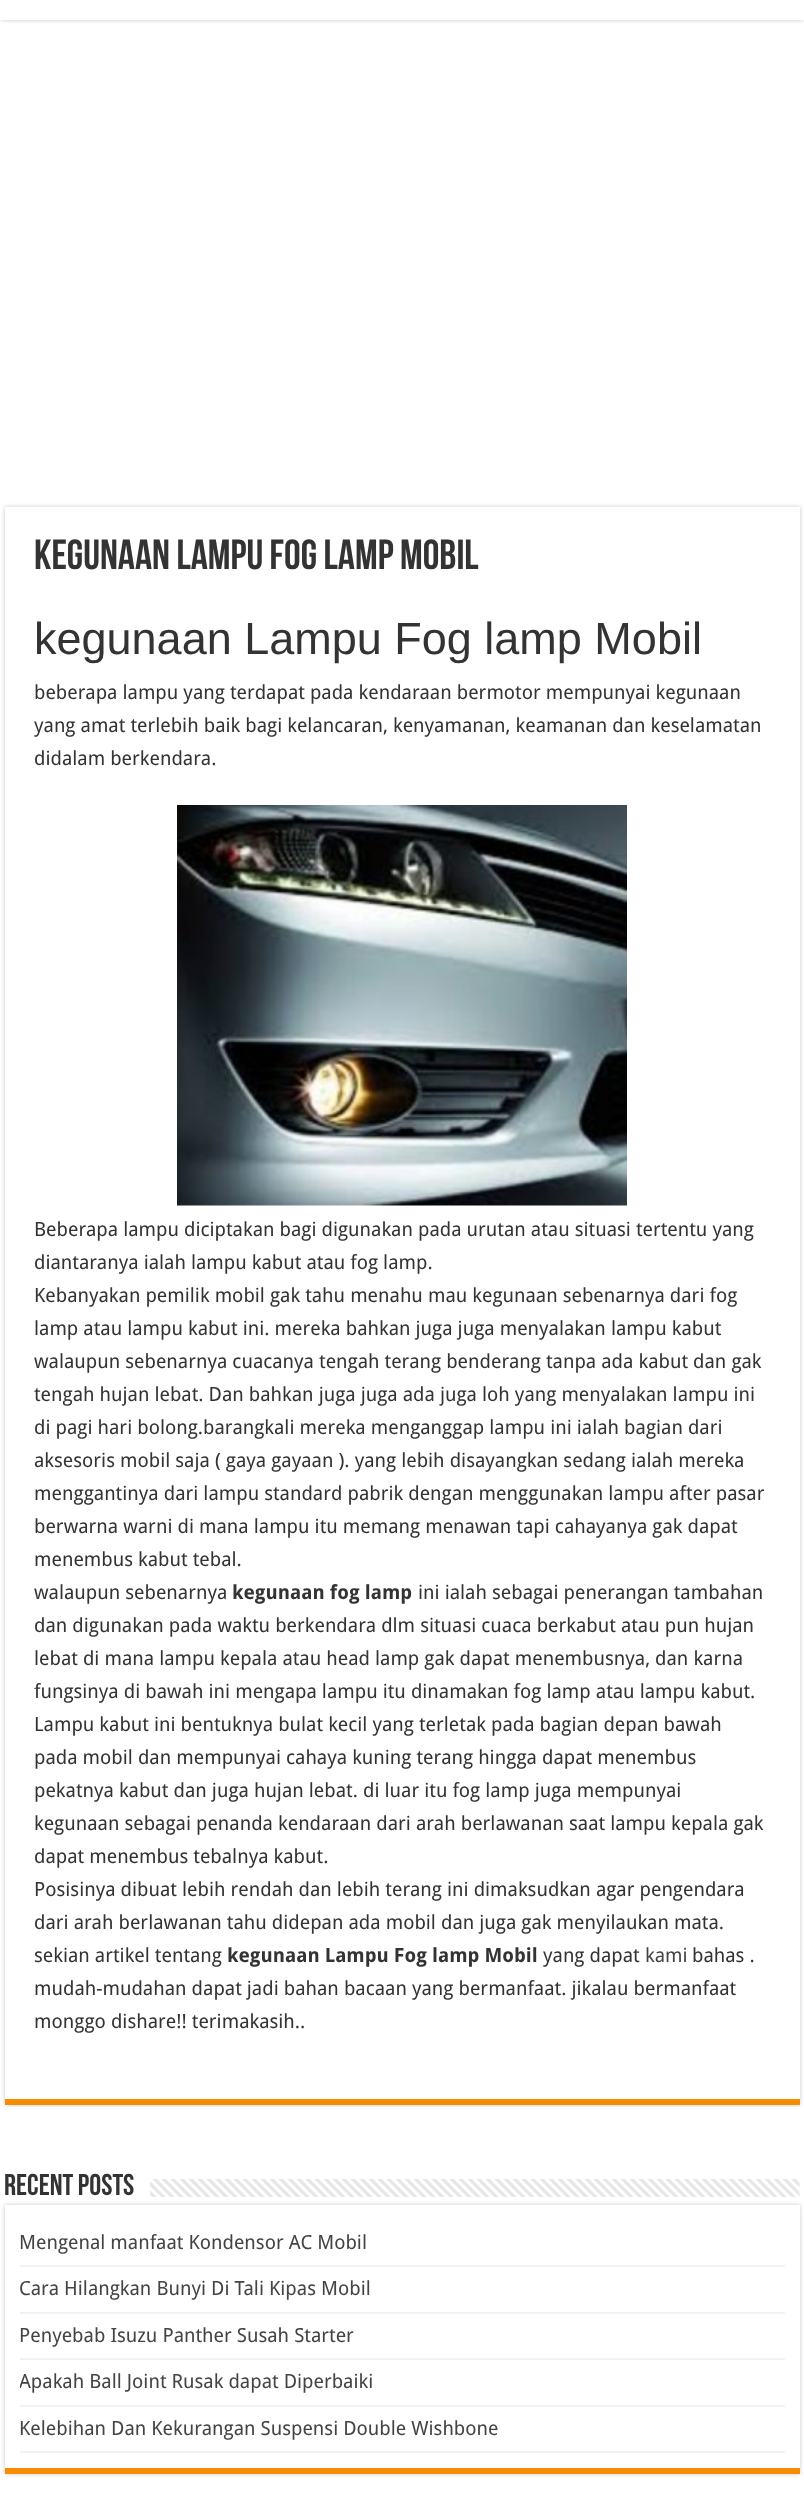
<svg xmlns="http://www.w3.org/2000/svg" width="804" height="2514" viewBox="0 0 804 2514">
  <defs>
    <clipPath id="clip1"><rect x="20" y="2360" width="765" height="45"/></clipPath>
  </defs>
  <rect width="100%" height="100%" fill="rgb(255,255,255)"/>
  <rect x="0" y="-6" width="804" height="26" fill="rgb(202,202,202)" filter="blur(2px)"/>
  <rect x="0" y="0" width="804" height="20" fill="rgb(255,255,255)"/>
  <rect x="5" y="507" width="795" height="1598" fill="rgb(202,202,202)" filter="blur(2px)"/>
  <rect x="5" y="507" width="795" height="1592" fill="rgb(255,255,255)"/>
  <rect x="5" y="2099" width="795" height="6" fill="rgb(248,140,0)"/>
  <text x="34" y="569" font-family="Bebas Neue" font-size="42" font-weight="bold" fill="rgb(51,51,51)">kegunaan Lampu Fog lamp Mobil</text>
  <text x="34" y="654" font-family="Liberation Sans" font-size="45" fill="rgb(51,51,51)">kegunaan Lampu Fog lamp Mobil</text>
  <g font-family="Droid Sans" font-size="19.5" fill="rgb(51,51,51)">
    <text>
      <tspan x="34" y="699">beberapa lampu yang terdapat pada kendaraan bermotor mempunyai kegunaan</tspan>
      <tspan x="34" y="732">yang amat terlebih baik bagi kelancaran, kenyamanan, keamanan dan keselamatan</tspan>
      <tspan x="34" y="765">didalam berkendara.</tspan>
    </text>
  </g>
  <image x="177" y="805" width="450" height="401" href="pic1.png"/>
  <g font-family="Droid Sans" font-size="19.5" fill="rgb(51,51,51)">
    <text>
      <tspan x="34" y="1236">Beberapa lampu diciptakan bagi digunakan pada urutan atau situasi tertentu yang</tspan>
      <tspan x="34" y="1269">diantaranya ialah lampu kabut atau fog lamp.</tspan>
      <tspan x="34" y="1302">Kebanyakan pemilik mobil gak tahu menahu mau kegunaan sebenarnya dari fog</tspan>
      <tspan x="34" y="1335">lamp atau lampu kabut ini. mereka bahkan juga juga menyalakan lampu kabut</tspan>
      <tspan x="34" y="1368">walaupun sebenarnya cuacanya tengah terang benderang tanpa ada kabut dan gak</tspan>
      <tspan x="34" y="1401">tengah hujan lebat. Dan bahkan juga juga ada juga loh yang menyalakan lampu ini</tspan>
      <tspan x="34" y="1434">di pagi hari bolong.barangkali mereka menganggap lampu ini ialah bagian dari</tspan>
      <tspan x="34" y="1467">aksesoris mobil saja ( gaya gayaan ). yang lebih disayangkan sedang ialah mereka</tspan>
      <tspan x="34" y="1500">menggantinya dari lampu standard pabrik dengan menggunakan lampu after pasar</tspan>
      <tspan x="34" y="1533">berwarna warni di mana lampu itu memang menawan tapi cahayanya gak dapat</tspan>
      <tspan x="34" y="1566">menembus kabut tebal.</tspan>
      <tspan x="34" y="1599">walaupun sebenarnya</tspan>
    </text>
  </g>
  <text x="232" y="1599" font-family="Droid Sans" font-size="19.5" font-weight="bold" fill="rgb(51,51,51)">kegunaan fog lamp</text>
  <g font-family="Droid Sans" font-size="19.5" fill="rgb(51,51,51)">
    <text x="418" y="1599">ini ialah sebagai penerangan tambahan</text>
    <text>
      <tspan x="34" y="1632">dan digunakan pada waktu berkendara dlm situasi cuaca berkabut atau pun hujan</tspan>
      <tspan x="34" y="1665">lebat di mana lampu kepala atau head lamp gak dapat menembusnya, dan karna</tspan>
      <tspan x="34" y="1698">fungsinya di bawah ini mengapa lampu itu dinamakan fog lamp atau lampu kabut.</tspan>
      <tspan x="34" y="1731">Lampu kabut ini bentuknya bulat kecil yang terletak pada bagian depan bawah</tspan>
      <tspan x="34" y="1764">pada mobil dan mempunyai cahaya kuning terang hingga dapat menembus</tspan>
      <tspan x="34" y="1797">pekatnya kabut dan juga hujan lebat. di luar itu fog lamp juga mempunyai</tspan>
      <tspan x="34" y="1830">kegunaan sebagai penanda kendaraan dari arah berlawanan saat lampu kepala gak</tspan>
      <tspan x="34" y="1863">dapat menembus tebalnya kabut.</tspan>
      <tspan x="34" y="1896">Posisinya dibuat lebih rendah dan lebih terang ini dimaksudkan agar pengendara</tspan>
      <tspan x="34" y="1929">dari arah berlawanan tahu didepan ada mobil dan juga gak menyilaukan mata.</tspan>
      <tspan x="34" y="1962">sekian artikel tentang</tspan>
    </text>
  </g>
  <text x="227" y="1962" font-family="Droid Sans" font-size="19.5" font-weight="bold" fill="rgb(51,51,51)">kegunaan Lampu Fog lamp Mobil</text>
  <text x="543" y="1962" font-family="Droid Sans" font-size="19.5" fill="rgb(51,51,51)">yang dapat</text>
  <text x="645" y="1962" font-family="Droid Sans" font-size="19.5" fill="rgb(68,68,68)">kami</text>
  <g font-family="Droid Sans" font-size="19.5" fill="rgb(51,51,51)">
    <text x="692" y="1962">bahas .</text>
    <text>
      <tspan x="34" y="1995">mudah-mudahan dapat jadi bahan bacaan yang bermanfaat. jikalau bermanfaat</tspan>
      <tspan x="34" y="2028">monggo dishare!! terimakasih..</tspan>
    </text>
  </g>
  <text x="4" y="2195" font-family="Bebas Neue" font-size="30" font-weight="bold" fill="rgb(51,51,51)">Recent Posts</text>
  <image x="150" y="2179" width="650" height="18" href="pic2.png"/>
  <rect x="5" y="2205" width="795" height="269" fill="rgb(202,202,202)" filter="blur(2px)"/>
  <rect x="5" y="2205" width="795" height="263" fill="rgb(255,255,255)"/>
  <rect x="5" y="2468" width="795" height="6" fill="rgb(248,140,0)"/>
  <rect x="20" y="2265" width="765" height="2" fill="rgb(242,242,242)"/>
  <text x="19" y="2249" font-family="Droid Sans" font-size="19.5" fill="rgb(68,68,68)">Mengenal manfaat Kondensor AC Mobil</text>
  <rect x="20" y="2312" width="765" height="2" fill="rgb(242,242,242)"/>
  <text x="19" y="2295" font-family="Droid Sans" font-size="19.5" fill="rgb(68,68,68)">Cara Hilangkan Bunyi Di Tali Kipas Mobil</text>
  <rect x="20" y="2358" width="765" height="2" fill="rgb(242,242,242)"/>
  <text x="19" y="2342" font-family="Droid Sans" font-size="19.5" fill="rgb(68,68,68)">Penyebab Isuzu Panther Susah Starter</text>
  <rect x="20" y="2405" width="765" height="2" fill="rgb(242,242,242)"/>
  <g clip-path="url(#clip1)">
    <text x="19" y="2388" font-family="Droid Sans" font-size="19.5" fill="rgb(68,68,68)">Apakah Ball Joint Rusak dapat Diperbaiki</text>
  </g>
  <rect x="20" y="2451" width="765" height="2" fill="rgb(242,242,242)"/>
  <text x="19" y="2435" font-family="Droid Sans" font-size="19.5" fill="rgb(68,68,68)">Kelebihan Dan Kekurangan Suspensi Double Wishbone</text>
</svg>
